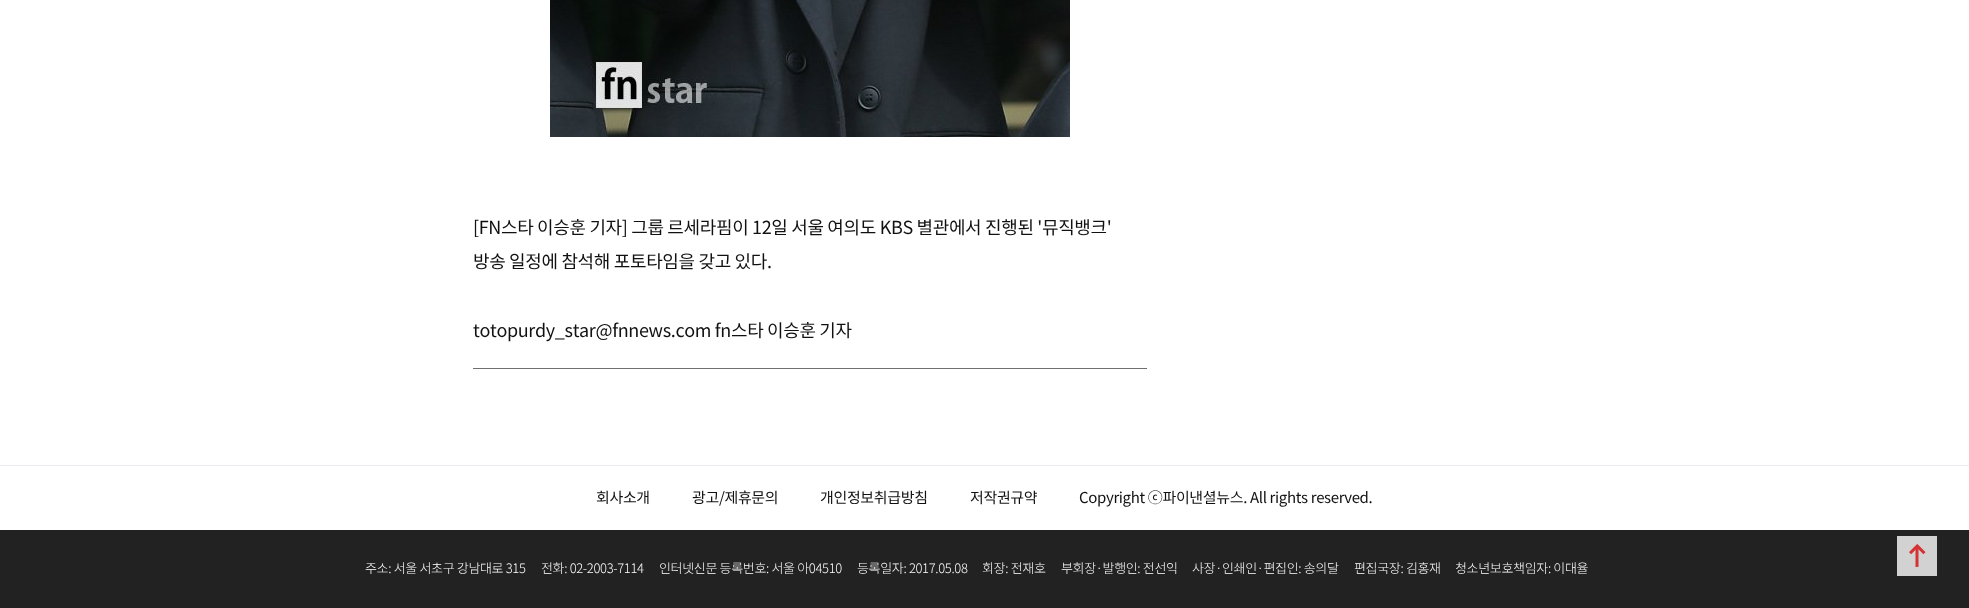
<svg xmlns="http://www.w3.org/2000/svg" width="1969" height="608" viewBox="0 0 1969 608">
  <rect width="100%" height="100%" fill="rgb(255,255,255)"/>
  <rect x="473" y="368" width="674" height="1" fill="rgb(112,112,112)"/>
  <image x="550" y="0" width="520" height="137" href="pic1.png"/>
  <g font-family="Noto Sans KR" font-size="18" letter-spacing="-0.35" fill="rgb(17,17,17)">
    <text>
      <tspan x="473" y="234">[FN스타 이승훈 기자] 그룹 르세라핌이 12일 서울 여의도 KBS 별관에서 진행된 '뮤직뱅크'</tspan>
      <tspan x="473" y="268">방송 일정에 참석해 포토타임을 갖고 있다.</tspan>
    </text>
    <text x="473" y="337">totopurdy_star@fnnews.com fn스타 이승훈 기자</text>
  </g>
  <rect x="0" y="530" width="1969" height="78" fill="rgb(34,34,34)"/>
  <image x="1897" y="536" width="40" height="40" href="pic2.png"/>
  <rect x="0" y="465" width="1969" height="1" fill="rgb(235,237,242)"/>
  <g font-family="Noto Sans KR" font-size="15" letter-spacing="-0.35" fill="rgb(17,17,17)">
    <text x="596" y="503">회사소개</text>
    <text x="692" y="503">광고/제휴문의</text>
    <text x="820" y="503">개인정보취급방침</text>
    <text x="970" y="503">저작권규약</text>
    <text x="1079" y="503">Copyright ⓒ파이낸셜뉴스. All rights reserved.</text>
  </g>
  <g font-family="Noto Sans KR" font-size="13" font-weight="300" letter-spacing="-0.35" fill="rgb(255,255,255)">
    <text x="365" y="573">주소: 서울 서초구 강남대로 315</text>
    <text x="541" y="573">전화: 02-2003-7114</text>
    <text x="659" y="573">인터넷신문 등록번호: 서울 아04510</text>
    <text x="857" y="573">등록일자: 2017.05.08</text>
    <text x="982" y="573">회장: 전재호</text>
    <text x="1061" y="573">부회장·발행인: 전선익</text>
    <text x="1192" y="573">사장·인쇄인·편집인: 송의달</text>
    <text x="1354" y="573">편집국장: 김홍재</text>
    <text x="1455" y="573">청소년보호책임자: 이대율</text>
  </g>
</svg>
